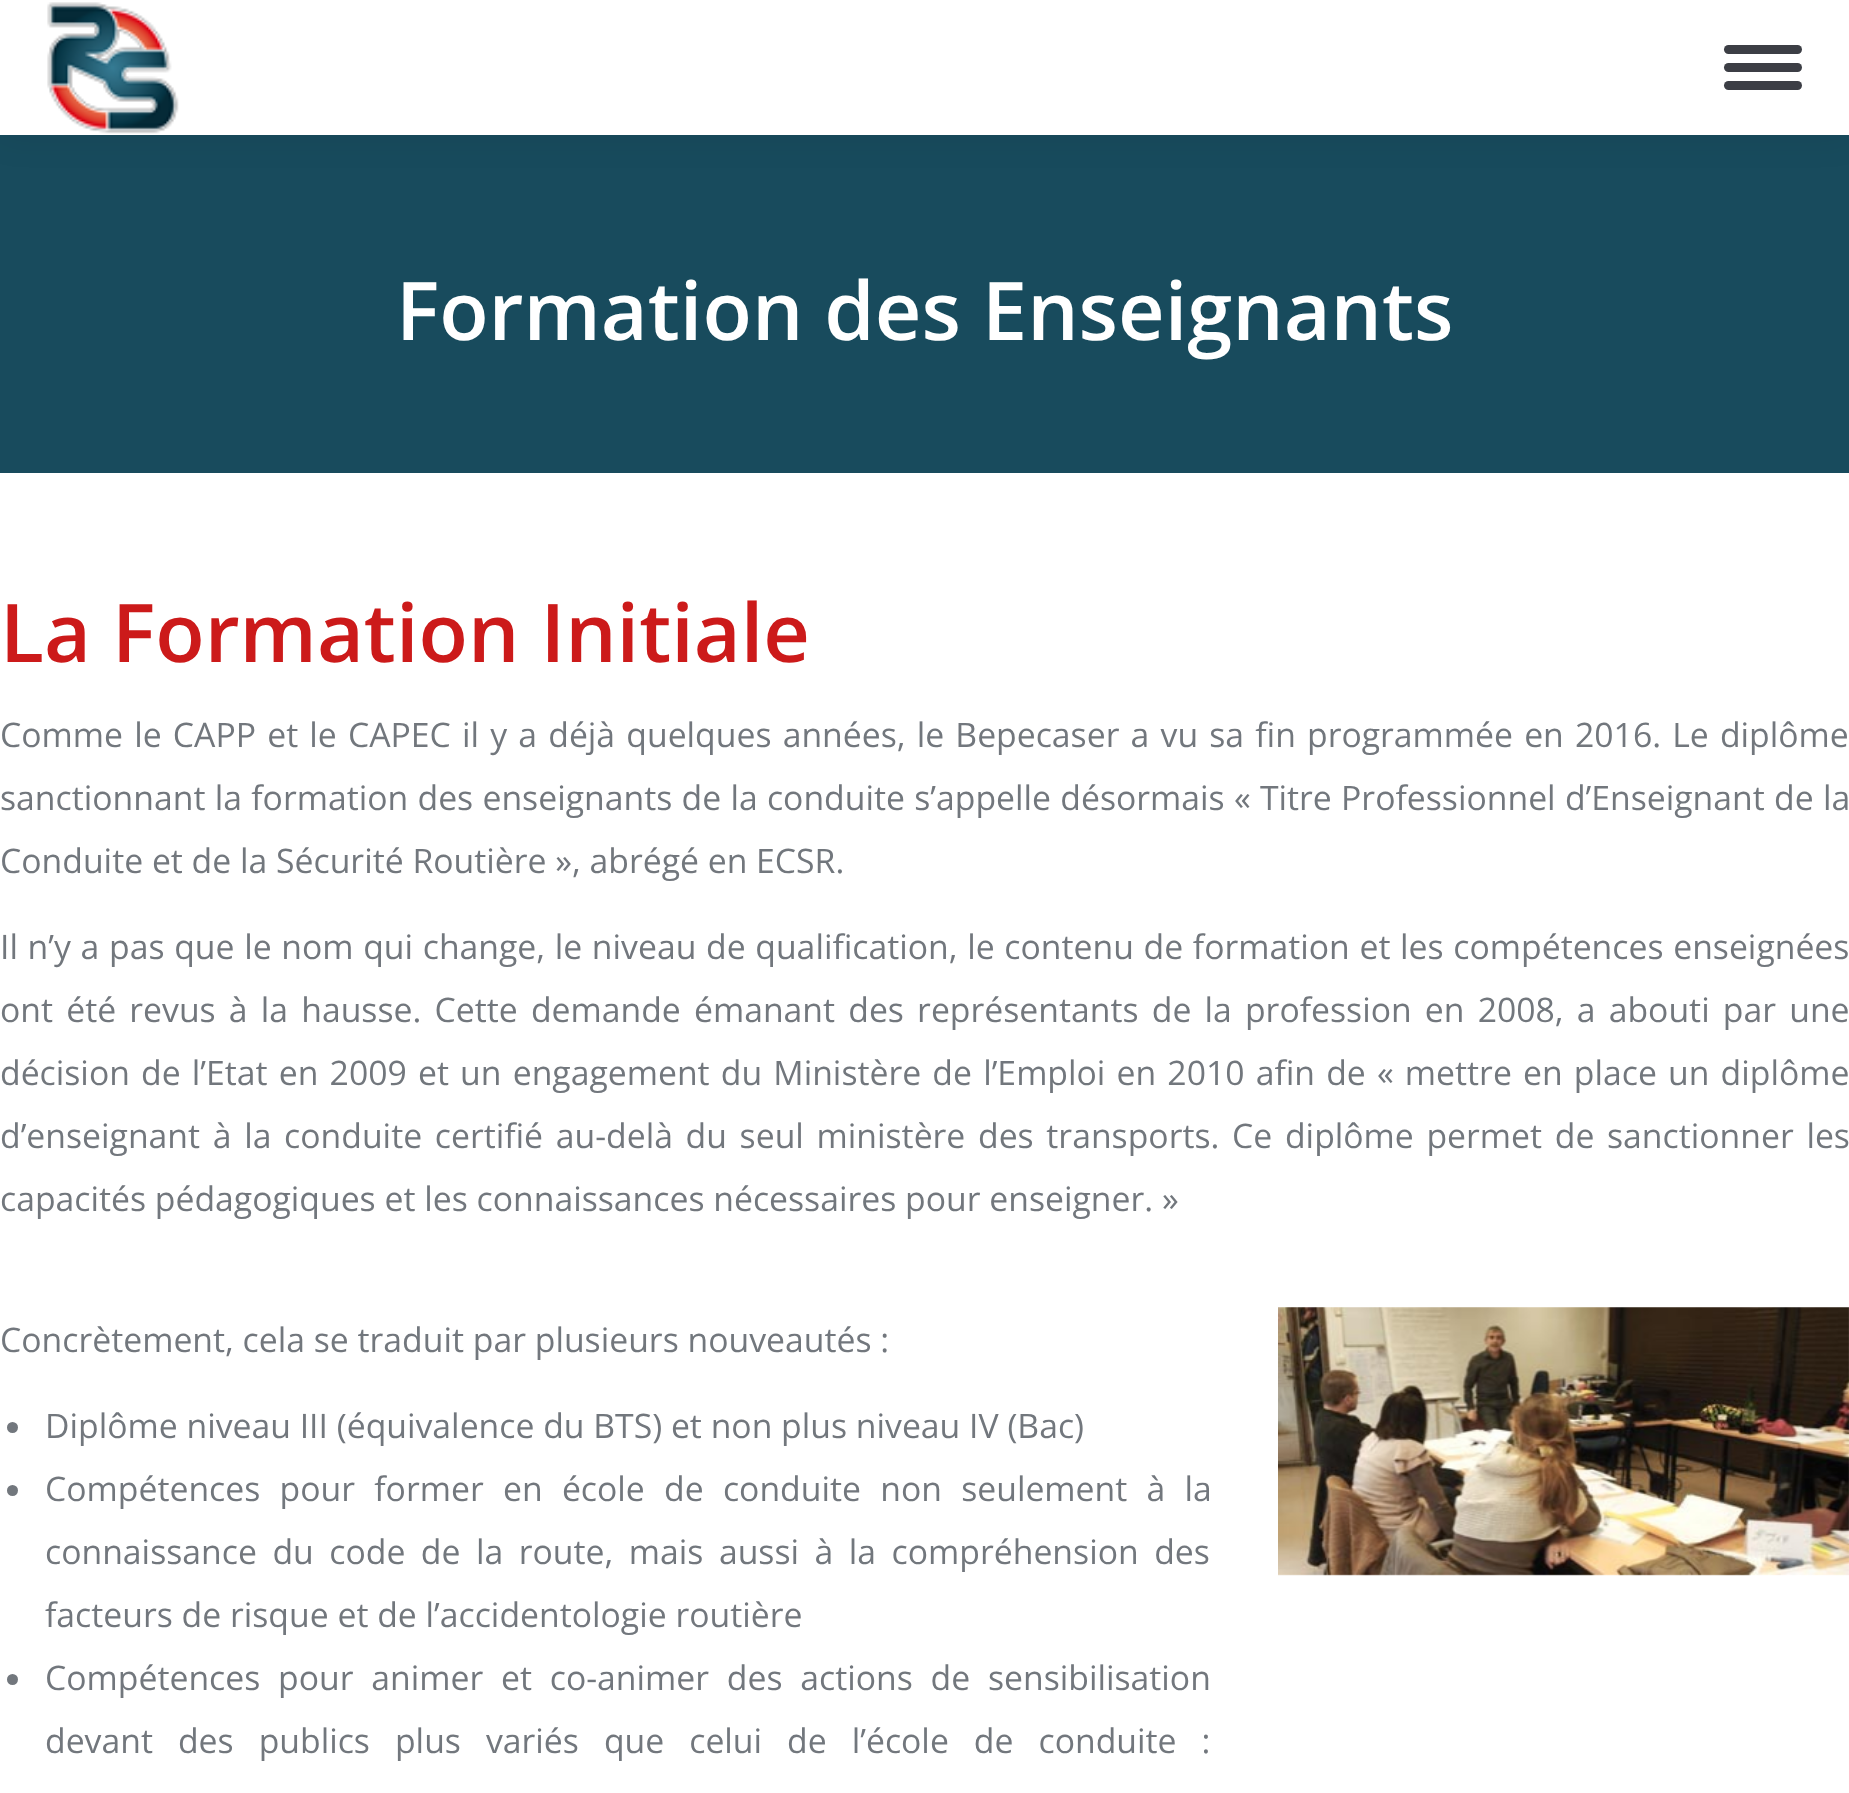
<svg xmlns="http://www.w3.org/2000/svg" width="1849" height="1793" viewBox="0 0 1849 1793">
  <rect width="100%" height="100%" fill="rgb(255,255,255)"/>
  <rect x="0" y="135" width="1849" height="338" fill="rgb(24,75,93)"/>
  <rect x="-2" y="-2" width="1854" height="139" fill="rgba(0,0,0,0.07)" filter="blur(17px)"/>
  <rect x="0" y="0" width="1849" height="135" fill="rgb(255,255,255)"/>
  <image x="47" y="2" width="132" height="132" href="pic1.png"/>
  <rect x="1724" y="45" width="78" height="9" rx="4.5" fill="rgb(60,62,69)"/>
  <rect x="1724" y="63" width="78" height="9" rx="4.5" fill="rgb(60,62,69)"/>
  <rect x="1724" y="81" width="78" height="9" rx="4.5" fill="rgb(60,62,69)"/>
  <text x="396" y="340" font-family="Open Sans" font-size="81" font-weight="600" fill="rgb(255,255,255)">Formation des Enseignants</text>
  <text x="0" y="662" font-family="Open Sans" font-size="81" font-weight="600" fill="rgb(204,26,26)">La Formation Initiale</text>
  <g font-family="Open Sans" font-size="33.75" fill="rgb(114,119,125)">
    <text>
      <tspan x="0" y="747" word-spacing="2.4">Comme le CAPP et le CAPEC il y a déjà quelques années, le Bepecaser a vu sa fin programmée en 2016. Le diplôme</tspan>
      <tspan x="0" y="810" word-spacing="0.5">sanctionnant la formation des enseignants de la conduite s’appelle désormais « Titre Professionnel d’Enseignant de la</tspan>
      <tspan x="0" y="873">Conduite et de la Sécurité Routière », abrégé en ECSR.</tspan>
    </text>
    <text>
      <tspan x="0" y="959" word-spacing="0.9">Il n’y a pas que le nom qui change, le niveau de qualification, le contenu de formation et les compétences enseignées</tspan>
      <tspan x="0" y="1022" word-spacing="4.4">ont été revus à la hausse. Cette demande émanant des représentants de la profession en 2008, a abouti par une</tspan>
      <tspan x="0" y="1085" word-spacing="2.4">décision de l’Etat en 2009 et un engagement du Ministère de l’Emploi en 2010 afin de « mettre en place un diplôme</tspan>
      <tspan x="0" y="1148" word-spacing="3.9">d’enseignant à la conduite certifié au-delà du seul ministère des transports. Ce diplôme permet de sanctionner les</tspan>
      <tspan x="0" y="1211">capacités pédagogiques et les connaissances nécessaires pour enseigner. »</tspan>
    </text>
    <text x="0" y="1352">Concrètement, cela se traduit par plusieurs nouveautés :</text>
  </g>
  <circle cx="12.5" cy="1427.5" r="5.5" fill="rgb(114,119,125)"/>
  <text x="45" y="1438" font-family="Open Sans" font-size="33.75" fill="rgb(114,119,125)">Diplôme niveau III (équivalence du BTS) et non plus niveau IV (Bac)</text>
  <circle cx="12.5" cy="1490.5" r="5.5" fill="rgb(114,119,125)"/>
  <g font-family="Open Sans" font-size="33.75" fill="rgb(114,119,125)">
    <text>
      <tspan x="45" y="1501" word-spacing="10.5">Compétences pour former en école de conduite non seulement à la</tspan>
      <tspan x="45" y="1564" word-spacing="6.75">connaissance du code de la route, mais aussi à la compréhension des</tspan>
      <tspan x="45" y="1627">facteurs de risque et de l’accidentologie routière</tspan>
    </text>
  </g>
  <circle cx="12.5" cy="1679.5" r="5.5" fill="rgb(114,119,125)"/>
  <g font-family="Open Sans" font-size="33.75" fill="rgb(114,119,125)">
    <text>
      <tspan x="45" y="1690" word-spacing="9">Compétences pour animer et co-animer des actions de sensibilisation</tspan>
      <tspan x="45" y="1753" word-spacing="16.25">devant des publics plus variés que celui de l’école de conduite :</tspan>
    </text>
  </g>
  <image x="1278" y="1307" width="571" height="269" href="pic2.png"/>
</svg>
